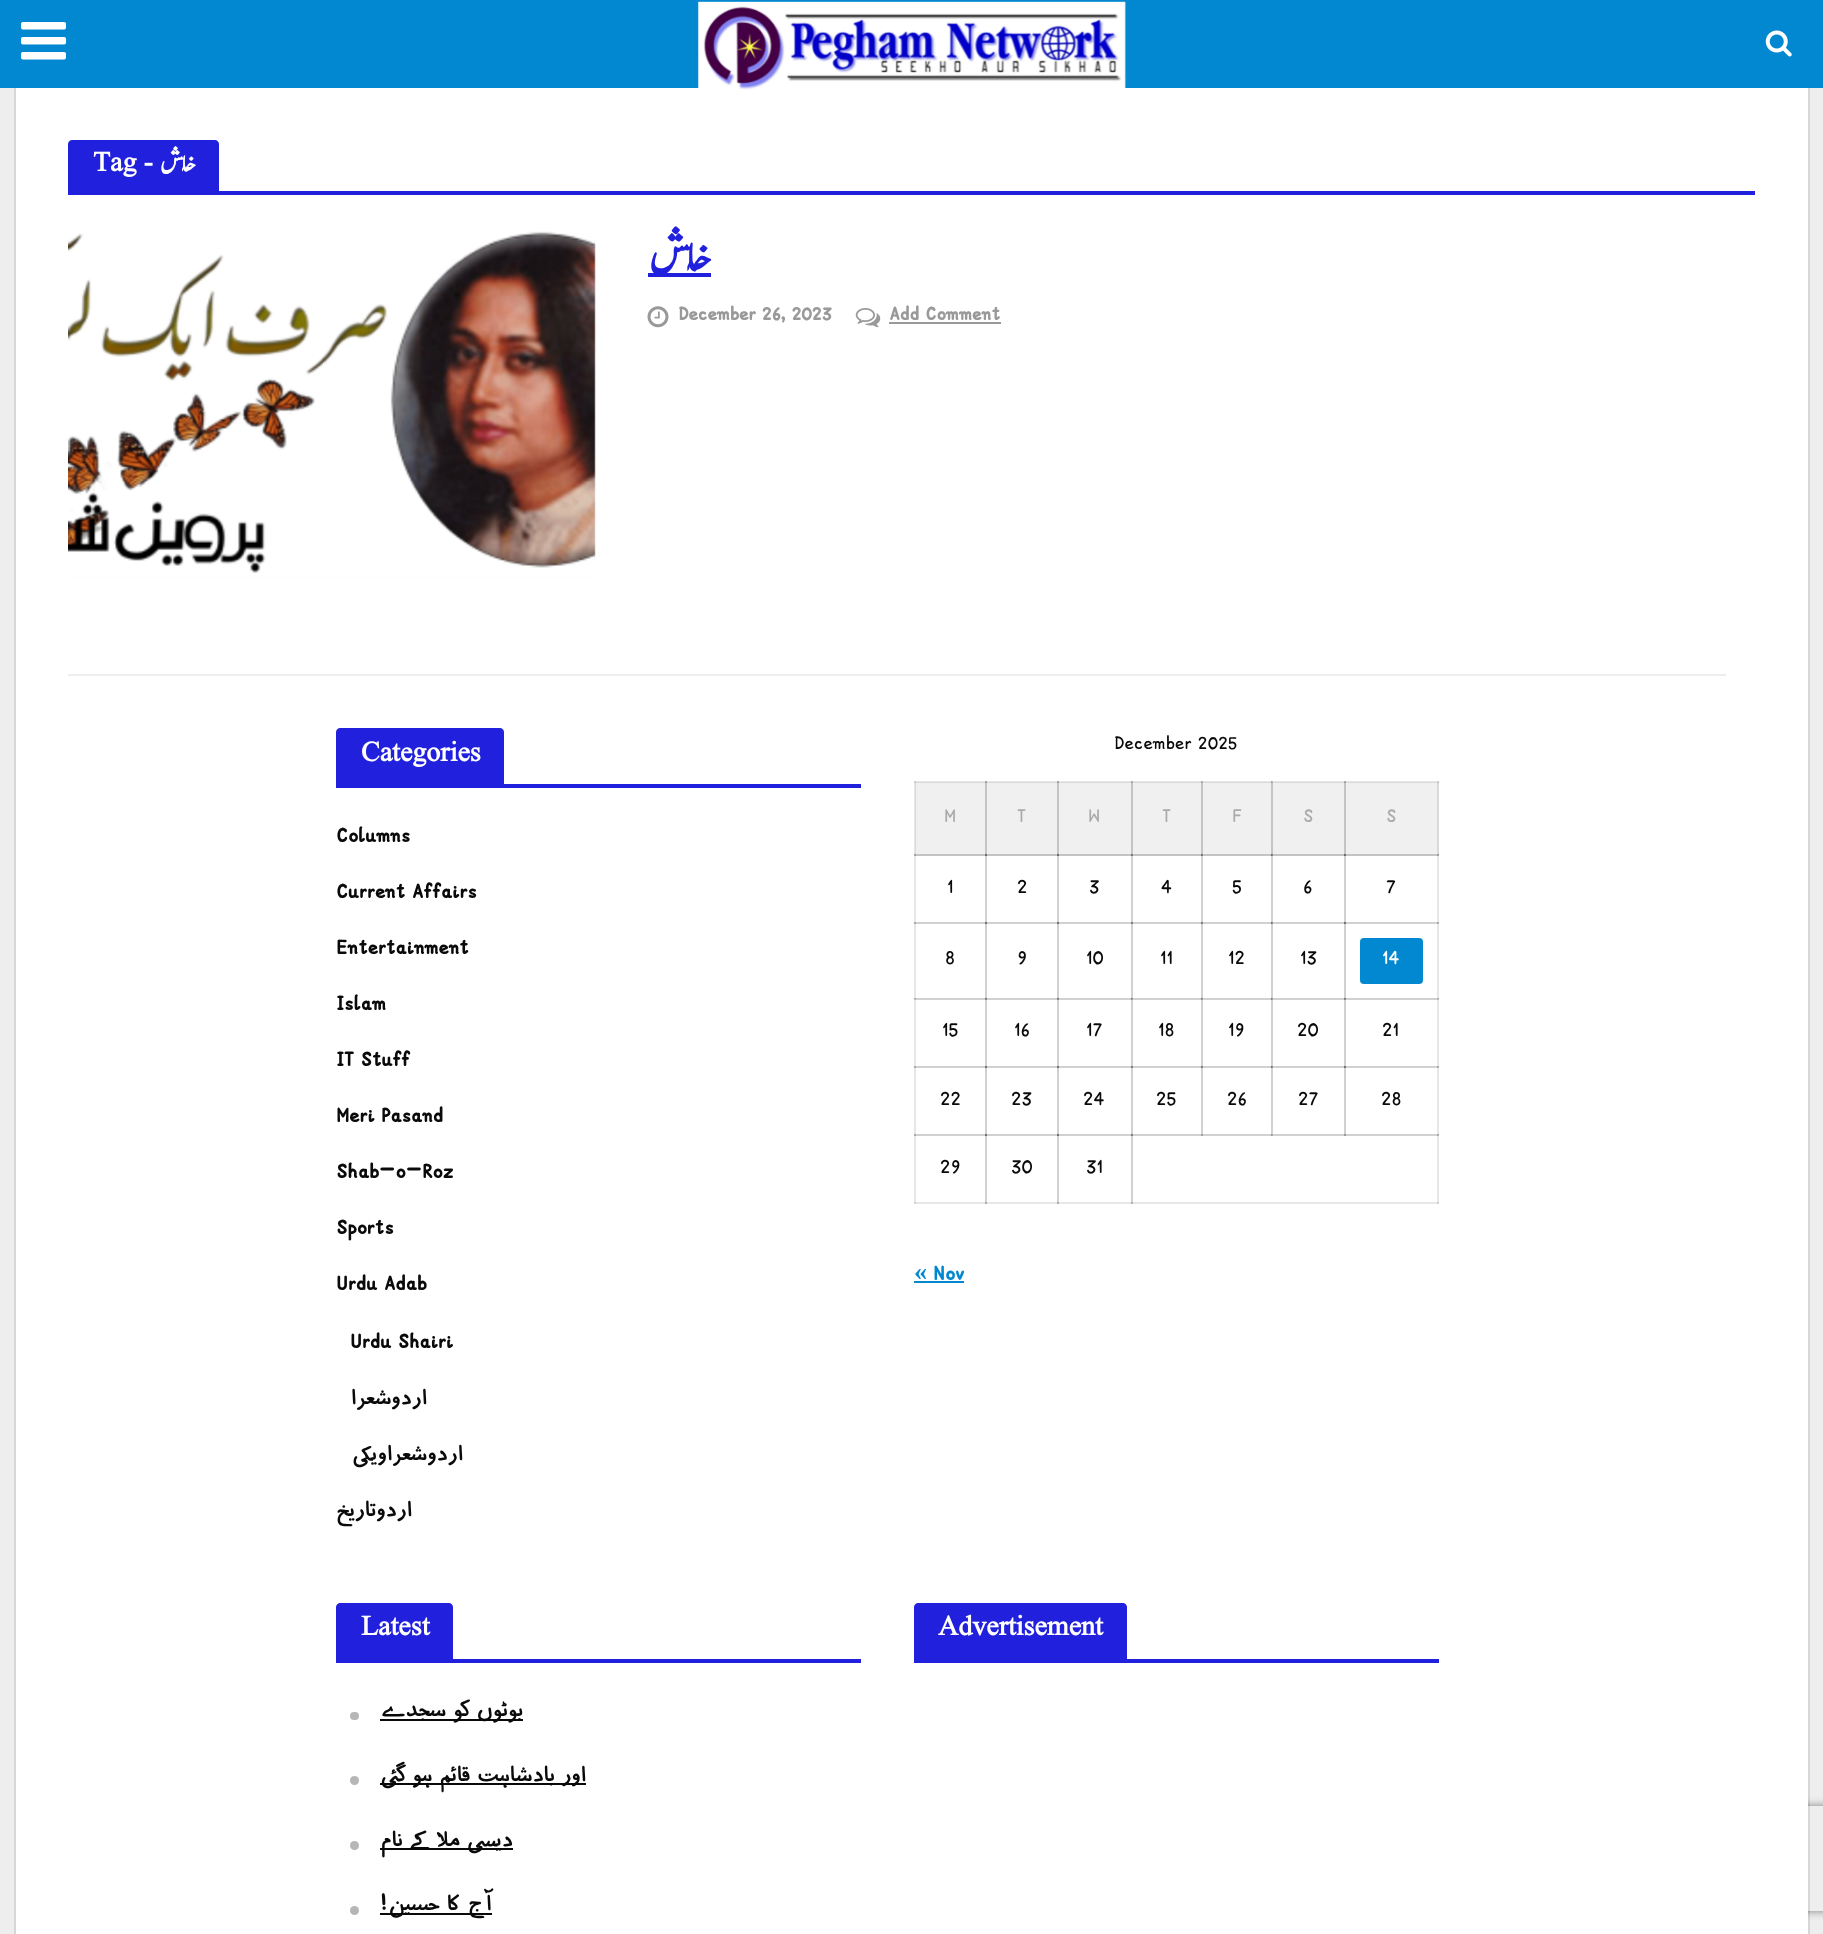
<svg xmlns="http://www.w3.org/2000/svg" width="1823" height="1934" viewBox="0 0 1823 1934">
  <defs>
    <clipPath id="clip1"><path d="M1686 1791H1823V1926H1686ZM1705 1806H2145C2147 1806 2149 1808 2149 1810V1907C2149 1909 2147 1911 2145 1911H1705C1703 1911 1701 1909 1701 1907V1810C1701 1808 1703 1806 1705 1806Z" clip-rule="evenodd"/></clipPath>
  </defs>
  <rect width="100%" height="100%" fill="rgb(238,238,238)"/>
  <g clip-path="url(#clip1)">
    <rect x="1701" y="1806" width="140" height="105" rx="4" fill="rgb(128,128,128)" filter="blur(4.5px)"/>
  </g>
  <rect x="15" y="87" width="1794" height="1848" fill="none" stroke="rgba(10,10,10,0.1)" stroke-width="2"/>
  <rect x="0" y="0" width="1823" height="88" fill="rgb(2,136,209)"/>
  <image x="21" y="22" width="45" height="38" href="pic1.png"/>
  <rect x="16" y="88" width="1792" height="1846" fill="rgb(255,255,255)"/>
  <image x="698" y="1" width="428" height="89" href="pic2.png"/>
  <image x="1765" y="30" width="27" height="27" href="pic3.png"/>
  <rect x="914" y="781" width="1" height="75" fill="rgb(231,231,231)"/>
  <rect x="914" y="781" width="525" height="1" fill="rgb(231,231,231)"/>
  <rect x="914" y="781" width="2" height="2" fill="rgb(209,209,209)"/>
  <rect x="985" y="781" width="2" height="1" fill="rgb(171,171,171)"/>
  <rect x="1057" y="781" width="2" height="1" fill="rgb(171,171,171)"/>
  <rect x="1131" y="781" width="2" height="1" fill="rgb(189,189,189)"/>
  <rect x="1131" y="781" width="1" height="2" fill="rgb(171,171,171)"/>
  <rect x="1201" y="781" width="2" height="1" fill="rgb(189,189,189)"/>
  <rect x="1201" y="781" width="1" height="2" fill="rgb(171,171,171)"/>
  <rect x="1271" y="781" width="2" height="1" fill="rgb(189,189,189)"/>
  <rect x="1271" y="781" width="1" height="2" fill="rgb(171,171,171)"/>
  <rect x="1344" y="781" width="2" height="1" fill="rgb(171,171,171)"/>
  <rect x="1437" y="781" width="2" height="1" fill="rgb(209,209,209)"/>
  <rect x="914" y="854" width="2" height="350" fill="rgb(231,231,231)"/>
  <rect x="914" y="854" width="2" height="2" fill="rgb(171,171,171)"/>
  <rect x="985" y="854" width="2" height="70" fill="rgb(209,209,209)"/>
  <rect x="1057" y="854" width="2" height="70" fill="rgb(209,209,209)"/>
  <rect x="1131" y="854" width="2" height="70" fill="rgb(209,209,209)"/>
  <rect x="1201" y="854" width="2" height="70" fill="rgb(209,209,209)"/>
  <rect x="1271" y="854" width="2" height="70" fill="rgb(209,209,209)"/>
  <rect x="1344" y="854" width="2" height="70" fill="rgb(209,209,209)"/>
  <rect x="1437" y="854" width="2" height="282" fill="rgb(231,231,231)"/>
  <rect x="914" y="922" width="73" height="2" fill="rgb(209,209,209)"/>
  <rect x="914" y="922" width="2" height="2" fill="rgb(171,171,171)"/>
  <rect x="985" y="922" width="2" height="77" fill="rgb(209,209,209)"/>
  <rect x="985" y="922" width="74" height="2" fill="rgb(209,209,209)"/>
  <rect x="985" y="922" width="2" height="2" fill="rgb(116,116,116)"/>
  <rect x="1057" y="922" width="2" height="77" fill="rgb(209,209,209)"/>
  <rect x="1057" y="922" width="75" height="2" fill="rgb(209,209,209)"/>
  <rect x="1057" y="922" width="2" height="2" fill="rgb(116,116,116)"/>
  <rect x="1131" y="922" width="2" height="77" fill="rgb(209,209,209)"/>
  <rect x="1131" y="922" width="71" height="2" fill="rgb(209,209,209)"/>
  <rect x="1131" y="922" width="2" height="2" fill="rgb(141,141,141)"/>
  <rect x="1131" y="922" width="1" height="2" fill="rgb(116,116,116)"/>
  <rect x="1201" y="922" width="2" height="77" fill="rgb(209,209,209)"/>
  <rect x="1201" y="922" width="71" height="2" fill="rgb(209,209,209)"/>
  <rect x="1201" y="922" width="2" height="2" fill="rgb(141,141,141)"/>
  <rect x="1201" y="922" width="1" height="2" fill="rgb(116,116,116)"/>
  <rect x="1271" y="922" width="2" height="77" fill="rgb(209,209,209)"/>
  <rect x="1271" y="922" width="75" height="2" fill="rgb(209,209,209)"/>
  <rect x="1271" y="922" width="2" height="2" fill="rgb(141,141,141)"/>
  <rect x="1271" y="922" width="1" height="2" fill="rgb(116,116,116)"/>
  <rect x="1344" y="922" width="2" height="77" fill="rgb(209,209,209)"/>
  <rect x="914" y="998" width="73" height="2" fill="rgb(209,209,209)"/>
  <rect x="914" y="999" width="2" height="1" fill="rgb(189,189,189)"/>
  <rect x="914" y="998" width="2" height="1" fill="rgb(171,171,171)"/>
  <rect x="985" y="998" width="2" height="70" fill="rgb(209,209,209)"/>
  <rect x="985" y="998" width="74" height="2" fill="rgb(209,209,209)"/>
  <rect x="985" y="999" width="2" height="1" fill="rgb(141,141,141)"/>
  <rect x="985" y="998" width="2" height="1" fill="rgb(116,116,116)"/>
  <rect x="1057" y="998" width="2" height="70" fill="rgb(209,209,209)"/>
  <rect x="1057" y="998" width="75" height="2" fill="rgb(209,209,209)"/>
  <rect x="1057" y="999" width="2" height="1" fill="rgb(141,141,141)"/>
  <rect x="1057" y="998" width="2" height="1" fill="rgb(116,116,116)"/>
  <rect x="1131" y="998" width="2" height="70" fill="rgb(209,209,209)"/>
  <rect x="1131" y="998" width="71" height="2" fill="rgb(209,209,209)"/>
  <rect x="1131" y="999" width="2" height="1" fill="rgb(171,171,171)"/>
  <rect x="1131" y="998" width="2" height="1" fill="rgb(141,141,141)"/>
  <rect x="1131" y="998" width="1" height="2" fill="rgb(141,141,141)"/>
  <rect x="1131" y="998" width="1" height="1" fill="rgb(116,116,116)"/>
  <rect x="1201" y="998" width="2" height="70" fill="rgb(209,209,209)"/>
  <rect x="1201" y="998" width="71" height="2" fill="rgb(209,209,209)"/>
  <rect x="1201" y="999" width="2" height="1" fill="rgb(171,171,171)"/>
  <rect x="1201" y="998" width="2" height="1" fill="rgb(141,141,141)"/>
  <rect x="1201" y="998" width="1" height="2" fill="rgb(141,141,141)"/>
  <rect x="1201" y="998" width="1" height="1" fill="rgb(116,116,116)"/>
  <rect x="1271" y="998" width="2" height="70" fill="rgb(209,209,209)"/>
  <rect x="1271" y="998" width="75" height="2" fill="rgb(209,209,209)"/>
  <rect x="1271" y="999" width="2" height="1" fill="rgb(171,171,171)"/>
  <rect x="1271" y="998" width="2" height="1" fill="rgb(141,141,141)"/>
  <rect x="1271" y="998" width="1" height="2" fill="rgb(141,141,141)"/>
  <rect x="1271" y="998" width="1" height="1" fill="rgb(116,116,116)"/>
  <rect x="1344" y="998" width="2" height="70" fill="rgb(209,209,209)"/>
  <rect x="914" y="1066" width="73" height="2" fill="rgb(209,209,209)"/>
  <rect x="914" y="1066" width="2" height="2" fill="rgb(171,171,171)"/>
  <rect x="985" y="1066" width="2" height="70" fill="rgb(209,209,209)"/>
  <rect x="985" y="1066" width="74" height="2" fill="rgb(209,209,209)"/>
  <rect x="985" y="1066" width="2" height="2" fill="rgb(116,116,116)"/>
  <rect x="1057" y="1066" width="2" height="70" fill="rgb(209,209,209)"/>
  <rect x="1057" y="1066" width="75" height="2" fill="rgb(209,209,209)"/>
  <rect x="1057" y="1066" width="2" height="2" fill="rgb(116,116,116)"/>
  <rect x="1131" y="1066" width="2" height="70" fill="rgb(209,209,209)"/>
  <rect x="1131" y="1066" width="71" height="2" fill="rgb(209,209,209)"/>
  <rect x="1131" y="1066" width="2" height="2" fill="rgb(141,141,141)"/>
  <rect x="1131" y="1066" width="1" height="2" fill="rgb(116,116,116)"/>
  <rect x="1201" y="1066" width="2" height="70" fill="rgb(209,209,209)"/>
  <rect x="1201" y="1066" width="71" height="2" fill="rgb(209,209,209)"/>
  <rect x="1201" y="1066" width="2" height="2" fill="rgb(141,141,141)"/>
  <rect x="1201" y="1066" width="1" height="2" fill="rgb(116,116,116)"/>
  <rect x="1271" y="1066" width="2" height="70" fill="rgb(209,209,209)"/>
  <rect x="1271" y="1066" width="75" height="2" fill="rgb(209,209,209)"/>
  <rect x="1271" y="1066" width="2" height="2" fill="rgb(141,141,141)"/>
  <rect x="1271" y="1066" width="1" height="2" fill="rgb(116,116,116)"/>
  <rect x="1344" y="1066" width="2" height="70" fill="rgb(209,209,209)"/>
  <rect x="914" y="1202" width="73" height="2" fill="rgb(231,231,231)"/>
  <rect x="914" y="1202" width="2" height="2" fill="rgb(209,209,209)"/>
  <rect x="914" y="1134" width="73" height="2" fill="rgb(209,209,209)"/>
  <rect x="914" y="1134" width="2" height="2" fill="rgb(171,171,171)"/>
  <rect x="985" y="1134" width="2" height="70" fill="rgb(209,209,209)"/>
  <rect x="985" y="1202" width="74" height="2" fill="rgb(231,231,231)"/>
  <rect x="985" y="1202" width="2" height="2" fill="rgb(171,171,171)"/>
  <rect x="985" y="1134" width="74" height="2" fill="rgb(209,209,209)"/>
  <rect x="985" y="1134" width="2" height="2" fill="rgb(116,116,116)"/>
  <rect x="1057" y="1134" width="2" height="70" fill="rgb(209,209,209)"/>
  <rect x="1057" y="1202" width="75" height="2" fill="rgb(231,231,231)"/>
  <rect x="1057" y="1202" width="2" height="2" fill="rgb(171,171,171)"/>
  <rect x="1057" y="1134" width="75" height="2" fill="rgb(209,209,209)"/>
  <rect x="1057" y="1134" width="2" height="2" fill="rgb(116,116,116)"/>
  <rect x="1131" y="1134" width="2" height="70" fill="rgb(209,209,209)"/>
  <rect x="1131" y="1202" width="308" height="2" fill="rgb(231,231,231)"/>
  <rect x="1131" y="1202" width="2" height="2" fill="rgb(189,189,189)"/>
  <rect x="1131" y="1202" width="1" height="2" fill="rgb(171,171,171)"/>
  <rect x="1437" y="1134" width="2" height="70" fill="rgb(231,231,231)"/>
  <rect x="1437" y="1202" width="2" height="2" fill="rgb(209,209,209)"/>
  <path d="M72 140H215C217 140 219 142 219 144V191H68V144C68 142 70 140 72 140Z" fill="rgb(33,33,221)"/>
  <text x="93" y="171" font-family="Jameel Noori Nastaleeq" font-size="28" font-weight="bold" fill="rgb(255,255,255)">Tag -</text>
  <text x="195" y="171" font-family="Jameel Noori Nastaleeq" font-size="28" font-weight="bold" direction="rtl" fill="rgb(255,255,255)">خلش</text>
  <rect x="68" y="191" width="1687" height="4" fill="rgb(33,33,221)"/>
  <rect x="68" y="226" width="527" height="352" fill="rgb(243,243,243)"/>
  <image x="68" y="226" width="528" height="352" href="pic4.png"/>
  <rect x="648" y="273" width="63" height="4" fill="rgb(33,33,221)"/>
  <text x="710" y="270" font-family="Jameel Noori Nastaleeq" font-size="49" font-weight="bold" direction="rtl" fill="rgb(33,33,221)">خلش</text>
  <image x="647" y="306" width="22" height="22" href="pic5.png"/>
  <text x="678" y="320" font-family="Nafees" font-size="24.5" font-weight="bold" fill="rgb(153,153,153)">December 26, 2023</text>
  <image x="855" y="308" width="26" height="20" href="pic6.png"/>
  <text x="889" y="320" font-family="Nafees" font-size="24.5" font-weight="bold" fill="rgb(153,153,153)">Add Comment</text>
  <rect x="889" y="322" width="112" height="2" fill="rgb(153,153,153)"/>
  <rect x="68" y="674" width="1658" height="2" fill="rgb(238,238,238)"/>
  <path d="M340 728H500C502 728 504 730 504 732V784H336V732C336 730 338 728 340 728Z" fill="rgb(33,33,221)"/>
  <text x="361" y="761" font-family="Jameel Noori Nastaleeq" font-size="28" font-weight="bold" fill="rgb(255,255,255)">Categories</text>
  <rect x="336" y="784" width="525" height="4" fill="rgb(33,33,221)"/>
  <g font-family="Nafees" font-size="26.25" font-weight="bold" fill="rgb(10,10,10)">
    <text x="336" y="842">Columns</text>
    <text x="336" y="898">Current Affairs</text>
    <text x="336" y="954">Entertainment</text>
    <text x="336" y="1010">Islam</text>
    <text x="336" y="1066">IT Stuff</text>
    <text x="336" y="1122">Meri Pasand</text>
    <text x="336" y="1178">Shab-o-Roz</text>
    <text x="336" y="1234">Sports</text>
    <text x="336" y="1290">Urdu Adab</text>
    <text x="350" y="1348">Urdu Shairi</text>
  </g>
  <g font-family="Nafees" font-size="26.25" font-weight="bold" direction="rtl" fill="rgb(10,10,10)">
    <text x="427" y="1404">اردوشعرا</text>
    <text x="463" y="1460">اردوشعراویکی</text>
    <text x="412" y="1516">اردوتاریخ</text>
  </g>
  <text x="1114" y="749" font-family="Nafees" font-size="24.5" fill="rgb(10,10,10)">December 2025</text>
  <rect x="916" y="783" width="521" height="71" fill="rgb(240,240,240)"/>
  <rect x="915" y="782" width="1" height="74" fill="rgb(217,217,217)"/>
  <rect x="915" y="782" width="72" height="1" fill="rgb(217,217,217)"/>
  <rect x="915" y="782" width="1" height="1" fill="rgb(196,196,196)"/>
  <rect x="985" y="782" width="2" height="74" fill="rgb(196,196,196)"/>
  <rect x="985" y="782" width="74" height="1" fill="rgb(217,217,217)"/>
  <rect x="985" y="782" width="2" height="1" fill="rgb(160,160,160)"/>
  <rect x="1057" y="782" width="2" height="74" fill="rgb(196,196,196)"/>
  <rect x="1057" y="782" width="75" height="1" fill="rgb(217,217,217)"/>
  <rect x="1057" y="782" width="2" height="1" fill="rgb(160,160,160)"/>
  <rect x="1131" y="782" width="2" height="74" fill="rgb(196,196,196)"/>
  <rect x="1131" y="782" width="71" height="1" fill="rgb(217,217,217)"/>
  <rect x="1131" y="782" width="2" height="1" fill="rgb(177,177,177)"/>
  <rect x="1131" y="782" width="1" height="1" fill="rgb(160,160,160)"/>
  <rect x="1201" y="782" width="2" height="74" fill="rgb(196,196,196)"/>
  <rect x="1201" y="782" width="71" height="1" fill="rgb(217,217,217)"/>
  <rect x="1201" y="782" width="2" height="1" fill="rgb(177,177,177)"/>
  <rect x="1201" y="782" width="1" height="1" fill="rgb(160,160,160)"/>
  <rect x="1271" y="782" width="2" height="74" fill="rgb(196,196,196)"/>
  <rect x="1271" y="782" width="75" height="1" fill="rgb(217,217,217)"/>
  <rect x="1271" y="782" width="2" height="1" fill="rgb(177,177,177)"/>
  <rect x="1271" y="782" width="1" height="1" fill="rgb(160,160,160)"/>
  <rect x="1344" y="782" width="2" height="74" fill="rgb(196,196,196)"/>
  <rect x="1437" y="782" width="2" height="74" fill="rgb(217,217,217)"/>
  <rect x="1344" y="782" width="95" height="1" fill="rgb(217,217,217)"/>
  <rect x="1344" y="782" width="2" height="1" fill="rgb(160,160,160)"/>
  <rect x="1437" y="782" width="2" height="1" fill="rgb(196,196,196)"/>
  <rect x="915" y="854" width="524" height="2" fill="rgb(196,196,196)"/>
  <rect x="915" y="854" width="1" height="2" fill="rgb(160,160,160)"/>
  <rect x="985" y="854" width="2" height="2" fill="rgb(109,109,109)"/>
  <rect x="1057" y="854" width="2" height="2" fill="rgb(109,109,109)"/>
  <rect x="1131" y="854" width="2" height="2" fill="rgb(132,132,132)"/>
  <rect x="1131" y="854" width="1" height="2" fill="rgb(109,109,109)"/>
  <rect x="1201" y="854" width="2" height="2" fill="rgb(132,132,132)"/>
  <rect x="1201" y="854" width="1" height="2" fill="rgb(109,109,109)"/>
  <rect x="1271" y="854" width="2" height="2" fill="rgb(132,132,132)"/>
  <rect x="1271" y="854" width="1" height="2" fill="rgb(109,109,109)"/>
  <g font-family="Nafees" font-size="24.5" fill="rgb(170,170,170)">
    <text x="944" y="822">M</text>
    <text x="1017" y="822">T</text>
    <text x="1088" y="822">W</text>
    <text x="1162" y="822">T</text>
    <text x="1232" y="822">F</text>
    <text x="1303" y="822">S</text>
    <text x="1386" y="822">S</text>
  </g>
  <g font-family="Nafees" font-size="26.25" fill="rgb(10,10,10)">
    <text x="947" y="893">1</text>
    <text x="1017" y="893">2</text>
    <text x="1089" y="893">3</text>
    <text x="1161" y="893">4</text>
    <text x="1232" y="893">5</text>
    <text x="1303" y="893">6</text>
  </g>
  <rect x="1344" y="854" width="2" height="2" fill="rgb(109,109,109)"/>
  <rect x="1437" y="854" width="2" height="2" fill="rgb(160,160,160)"/>
  <g font-family="Nafees" font-size="26.25" fill="rgb(10,10,10)">
    <text x="1386" y="893">7</text>
    <text x="945" y="964">8</text>
    <text x="1017" y="964">9</text>
    <text x="1086" y="964">10</text>
    <text x="1160" y="964">11</text>
    <text x="1228" y="964">12</text>
    <text x="1300" y="964">13</text>
  </g>
  <rect x="1344" y="922" width="95" height="2" fill="rgb(209,209,209)"/>
  <rect x="1344" y="922" width="2" height="2" fill="rgb(116,116,116)"/>
  <rect x="1437" y="922" width="2" height="2" fill="rgb(171,171,171)"/>
  <rect x="1360" y="938" width="63" height="46" rx="4" fill="rgb(2,136,209)"/>
  <text x="1382" y="964" font-family="Nafees" font-size="26.25" fill="rgb(255,255,255)">14</text>
  <g font-family="Nafees" font-size="26.25" fill="rgb(10,10,10)">
    <text x="942" y="1036">15</text>
    <text x="1014" y="1036">16</text>
    <text x="1086" y="1036">17</text>
    <text x="1158" y="1036">18</text>
    <text x="1228" y="1036">19</text>
    <text x="1297" y="1036">20</text>
  </g>
  <rect x="1344" y="998" width="95" height="2" fill="rgb(209,209,209)"/>
  <rect x="1344" y="999" width="2" height="1" fill="rgb(141,141,141)"/>
  <rect x="1344" y="998" width="2" height="1" fill="rgb(116,116,116)"/>
  <rect x="1437" y="999" width="2" height="1" fill="rgb(189,189,189)"/>
  <rect x="1437" y="998" width="2" height="1" fill="rgb(171,171,171)"/>
  <g font-family="Nafees" font-size="26.25" fill="rgb(10,10,10)">
    <text x="1382" y="1036">21</text>
    <text x="940" y="1105">22</text>
    <text x="1011" y="1105">23</text>
    <text x="1083" y="1105">24</text>
    <text x="1156" y="1105">25</text>
    <text x="1227" y="1105">26</text>
    <text x="1298" y="1105">27</text>
  </g>
  <rect x="1344" y="1066" width="95" height="2" fill="rgb(209,209,209)"/>
  <rect x="1344" y="1066" width="2" height="2" fill="rgb(116,116,116)"/>
  <rect x="1437" y="1066" width="2" height="2" fill="rgb(171,171,171)"/>
  <text x="1381" y="1105" font-family="Nafees" font-size="26.25" fill="rgb(10,10,10)">28</text>
  <rect x="1131" y="1134" width="308" height="2" fill="rgb(209,209,209)"/>
  <rect x="1201" y="1134" width="2" height="2" fill="rgb(171,171,171)"/>
  <rect x="1201" y="1134" width="1" height="2" fill="rgb(155,155,155)"/>
  <rect x="1271" y="1134" width="2" height="2" fill="rgb(171,171,171)"/>
  <rect x="1271" y="1134" width="1" height="2" fill="rgb(155,155,155)"/>
  <rect x="1344" y="1134" width="2" height="2" fill="rgb(155,155,155)"/>
  <rect x="1131" y="1134" width="2" height="2" fill="rgb(141,141,141)"/>
  <rect x="1131" y="1134" width="1" height="2" fill="rgb(116,116,116)"/>
  <rect x="1437" y="1134" width="2" height="2" fill="rgb(171,171,171)"/>
  <g font-family="Nafees" font-size="26.25" fill="rgb(10,10,10)">
    <text x="940" y="1173">29</text>
    <text x="1011" y="1173">30</text>
    <text x="1086" y="1173">31</text>
  </g>
  <text x="914" y="1280" font-family="Liberation Serif" font-size="26.25" font-weight="bold" fill="rgb(2,136,209)">«</text>
  <rect x="914" y="1281" width="50" height="2" fill="rgb(2,136,209)"/>
  <text x="933" y="1280" font-family="Nafees" font-size="26.25" font-weight="bold" fill="rgb(2,136,209)">Nov</text>
  <path d="M340 1603H449C451 1603 453 1605 453 1607V1659H336V1607C336 1605 338 1603 340 1603Z" fill="rgb(33,33,221)"/>
  <text x="361" y="1635" font-family="Jameel Noori Nastaleeq" font-size="28" font-weight="bold" fill="rgb(255,255,255)">Latest</text>
  <rect x="336" y="1659" width="525" height="4" fill="rgb(33,33,221)"/>
  <rect x="350" y="1712" width="9" height="8" rx="4" fill="rgb(182,182,182)"/>
  <rect x="380" y="1719" width="143" height="2" fill="rgb(10,10,10)"/>
  <text x="523" y="1716" font-family="Nafees" font-size="26.25" font-weight="bold" direction="rtl" fill="rgb(10,10,10)">بوٹوں کو سجدے</text>
  <circle cx="354.5" cy="1780.5" r="4.5" fill="rgb(182,182,182)"/>
  <rect x="380" y="1783" width="206" height="2" fill="rgb(10,10,10)"/>
  <text x="586" y="1781" font-family="Nafees" font-size="26.25" font-weight="bold" direction="rtl" fill="rgb(10,10,10)">اور بادشاہت قائم ہو گئی</text>
  <circle cx="354.5" cy="1845.5" r="4.5" fill="rgb(182,182,182)"/>
  <rect x="380" y="1848" width="133" height="2" fill="rgb(10,10,10)"/>
  <text x="513" y="1846" font-family="Nafees" font-size="26.25" font-weight="bold" direction="rtl" fill="rgb(10,10,10)">دیسی ملا کے نام</text>
  <circle cx="354.5" cy="1910.5" r="4.5" fill="rgb(182,182,182)"/>
  <text x="380" y="1910" font-family="Nafees" font-size="26.25" font-weight="bold" fill="rgb(10,10,10)">!</text>
  <rect x="380" y="1913" width="112" height="2" fill="rgb(10,10,10)"/>
  <text x="491" y="1910" font-family="Nafees" font-size="26.25" font-weight="bold" direction="rtl" fill="rgb(10,10,10)">آج کا حسین</text>
  <path d="M918 1603H1123C1125 1603 1127 1605 1127 1607V1659H914V1607C914 1605 916 1603 918 1603Z" fill="rgb(33,33,221)"/>
  <text x="938" y="1635" font-family="Jameel Noori Nastaleeq" font-size="28" font-weight="bold" fill="rgb(255,255,255)">Advertisement</text>
  <rect x="914" y="1659" width="525" height="4" fill="rgb(33,33,221)"/>
</svg>
